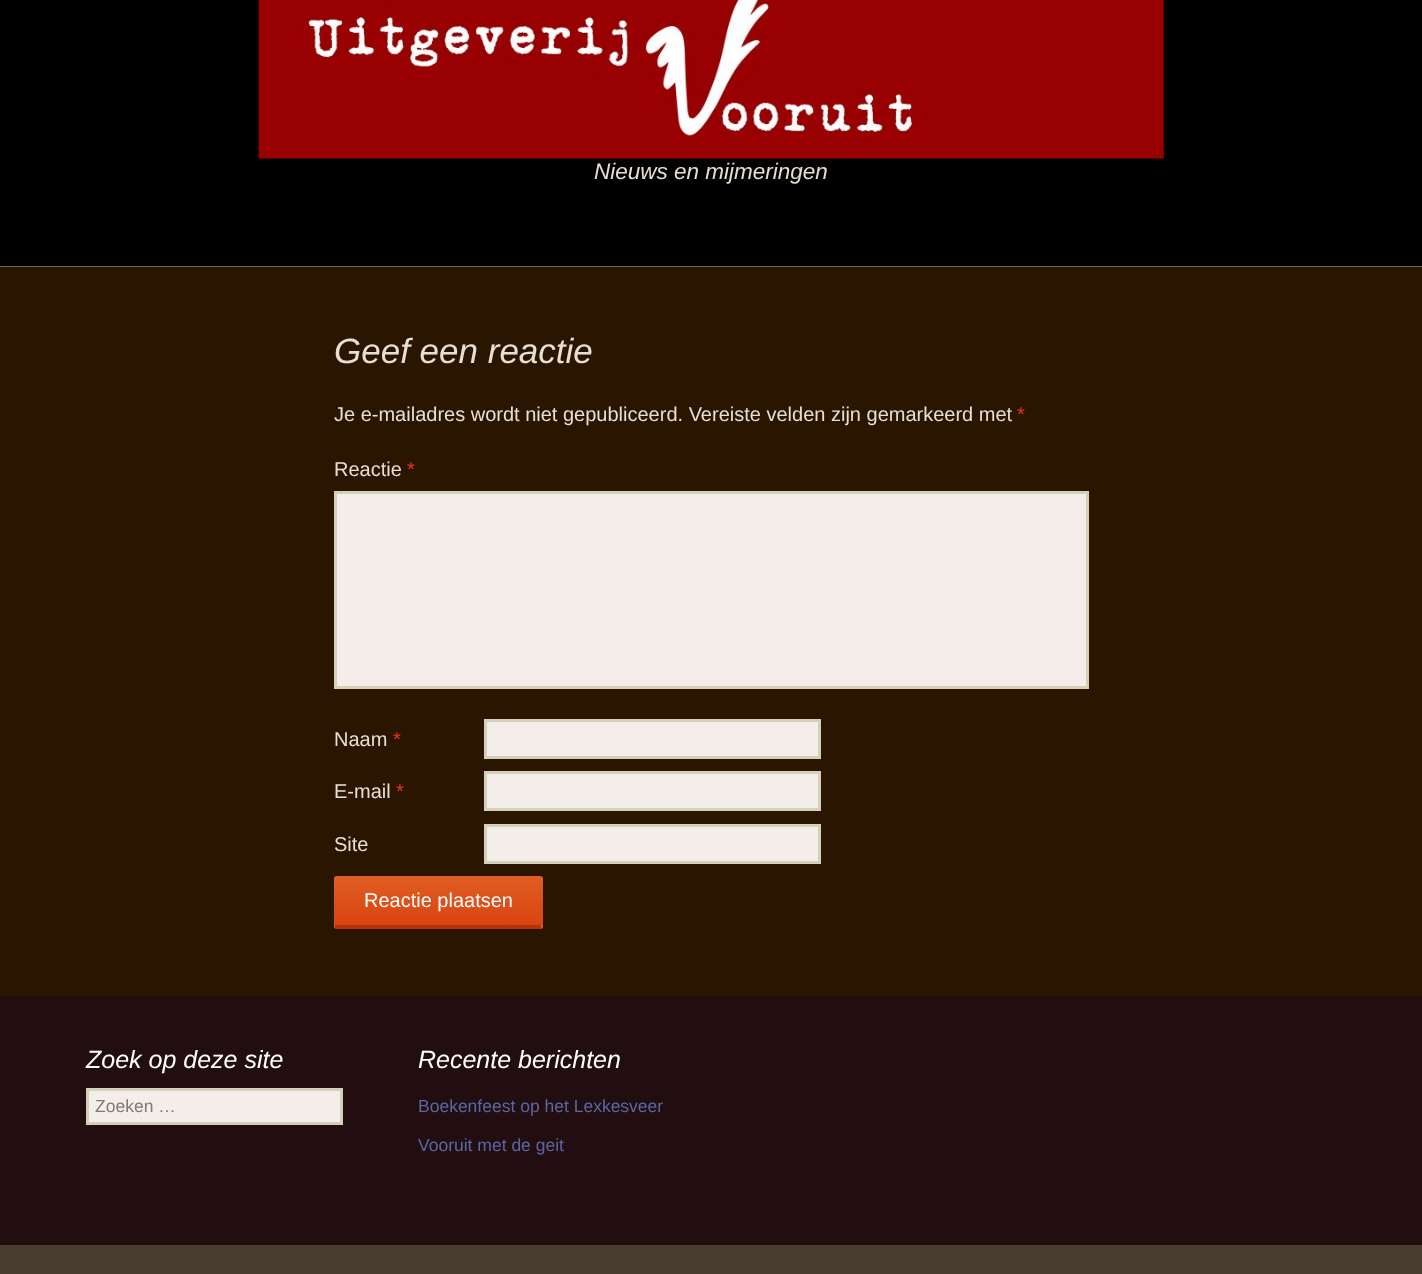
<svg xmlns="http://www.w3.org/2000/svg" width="1422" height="1274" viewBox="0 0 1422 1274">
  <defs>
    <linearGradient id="g1" gradientUnits="userSpaceOnUse" x1="438" y1="876" x2="438" y2="925"><stop offset="0" stop-color="rgb(224,93,34)"/><stop offset="1" stop-color="rgb(217,68,18)"/></linearGradient>
    <linearGradient id="g2" gradientUnits="userSpaceOnUse" x1="438" y1="925" x2="438" y2="974"><stop offset="0" stop-color="rgb(224,93,34)"/><stop offset="1" stop-color="rgb(217,68,18)"/></linearGradient>
  </defs>
  <rect width="100%" height="100%" fill="rgb(42,22,0)"/>
  <rect x="0" y="0" width="1422" height="266" fill="rgb(0,0,0)"/>
  <image x="258" y="0" width="906" height="159" href="pic1.png"/>
  <text x="594" y="179" font-family="Liberation Sans" font-size="22.5" font-style="italic" fill="rgb(231,222,212)">Nieuws en mijmeringen</text>
  <rect x="0" y="266" width="1422" height="1" fill="rgb(102,102,102)"/>
  <text x="334" y="363" font-family="Liberation Sans" font-size="35" font-style="italic" fill="rgb(231,222,212)">Geef een reactie</text>
  <text x="334" y="421" font-family="Liberation Sans" font-size="20" fill="rgb(231,222,212)">Je e-mailadres wordt niet gepubliceerd. Vereiste velden zijn gemarkeerd met</text>
  <text x="1017" y="421" font-family="Liberation Sans" font-size="20" fill="rgb(237,51,28)">*</text>
  <text x="334" y="476" font-family="Liberation Sans" font-size="20" fill="rgb(231,222,212)">Reactie</text>
  <text x="407" y="476" font-family="Liberation Sans" font-size="20" fill="rgb(237,51,28)">*</text>
  <rect x="335.5" y="492.5" width="752" height="195" fill="rgb(243,238,233)" stroke="rgb(212,208,186)" stroke-width="3"/>
  <text x="334" y="746" font-family="Liberation Sans" font-size="20" fill="rgb(231,222,212)">Naam</text>
  <text x="393" y="746" font-family="Liberation Sans" font-size="20" fill="rgb(237,51,28)">*</text>
  <rect x="485.5" y="720.5" width="334" height="37" fill="rgb(243,238,233)" stroke="rgb(212,208,186)" stroke-width="3"/>
  <text x="334" y="798" font-family="Liberation Sans" font-size="20" fill="rgb(231,222,212)">E-mail</text>
  <text x="396" y="798" font-family="Liberation Sans" font-size="20" fill="rgb(237,51,28)">*</text>
  <rect x="485.5" y="772.5" width="334" height="37" fill="rgb(243,238,233)" stroke="rgb(212,208,186)" stroke-width="3"/>
  <text x="334" y="851" font-family="Liberation Sans" font-size="20" fill="rgb(231,222,212)">Site</text>
  <rect x="485.5" y="825.5" width="334" height="37" fill="rgb(243,238,233)" stroke="rgb(212,208,186)" stroke-width="3"/>
  <path d="M336.5 876H540.5C542 876 543 877 543 878.5V925H334V878.5C334 877 335 876 336.5 876Z" fill="url(#g1)"/>
  <path d="M334 925H543V926.5C543 928 542 929 540.5 929H336.5C335 929 334 928 334 926.5Z" fill="url(#g2)"/>
  <rect x="335" y="925" width="206" height="4" fill="rgb(185,50,7)"/>
  <text x="364" y="907" font-family="Liberation Sans" font-size="20" fill="rgb(255,255,255)">Reactie plaatsen</text>
  <rect x="0" y="1245" width="1422" height="29" fill="rgb(73,61,49)"/>
  <rect x="0" y="996" width="1422" height="249" fill="rgb(34,14,16)"/>
  <text x="86" y="1068" font-family="Liberation Sans" font-size="25" font-style="italic" fill="rgb(255,255,255)">Zoek op deze site</text>
  <rect x="87.5" y="1089.5" width="254" height="34" fill="rgb(243,238,233)" stroke="rgb(212,208,186)" stroke-width="3"/>
  <text x="95" y="1112" font-family="Liberation Sans" font-size="17.5" fill="rgb(125,123,109)">Zoeken …</text>
  <text x="418" y="1068" font-family="Liberation Sans" font-size="25" font-style="italic" fill="rgb(255,255,255)">Recente berichten</text>
  <g font-family="Liberation Sans" font-size="17.5" fill="rgb(91,102,165)">
    <text x="418" y="1112">Boekenfeest op het Lexkesveer</text>
    <text x="418" y="1151">Vooruit met de geit</text>
  </g>
</svg>
